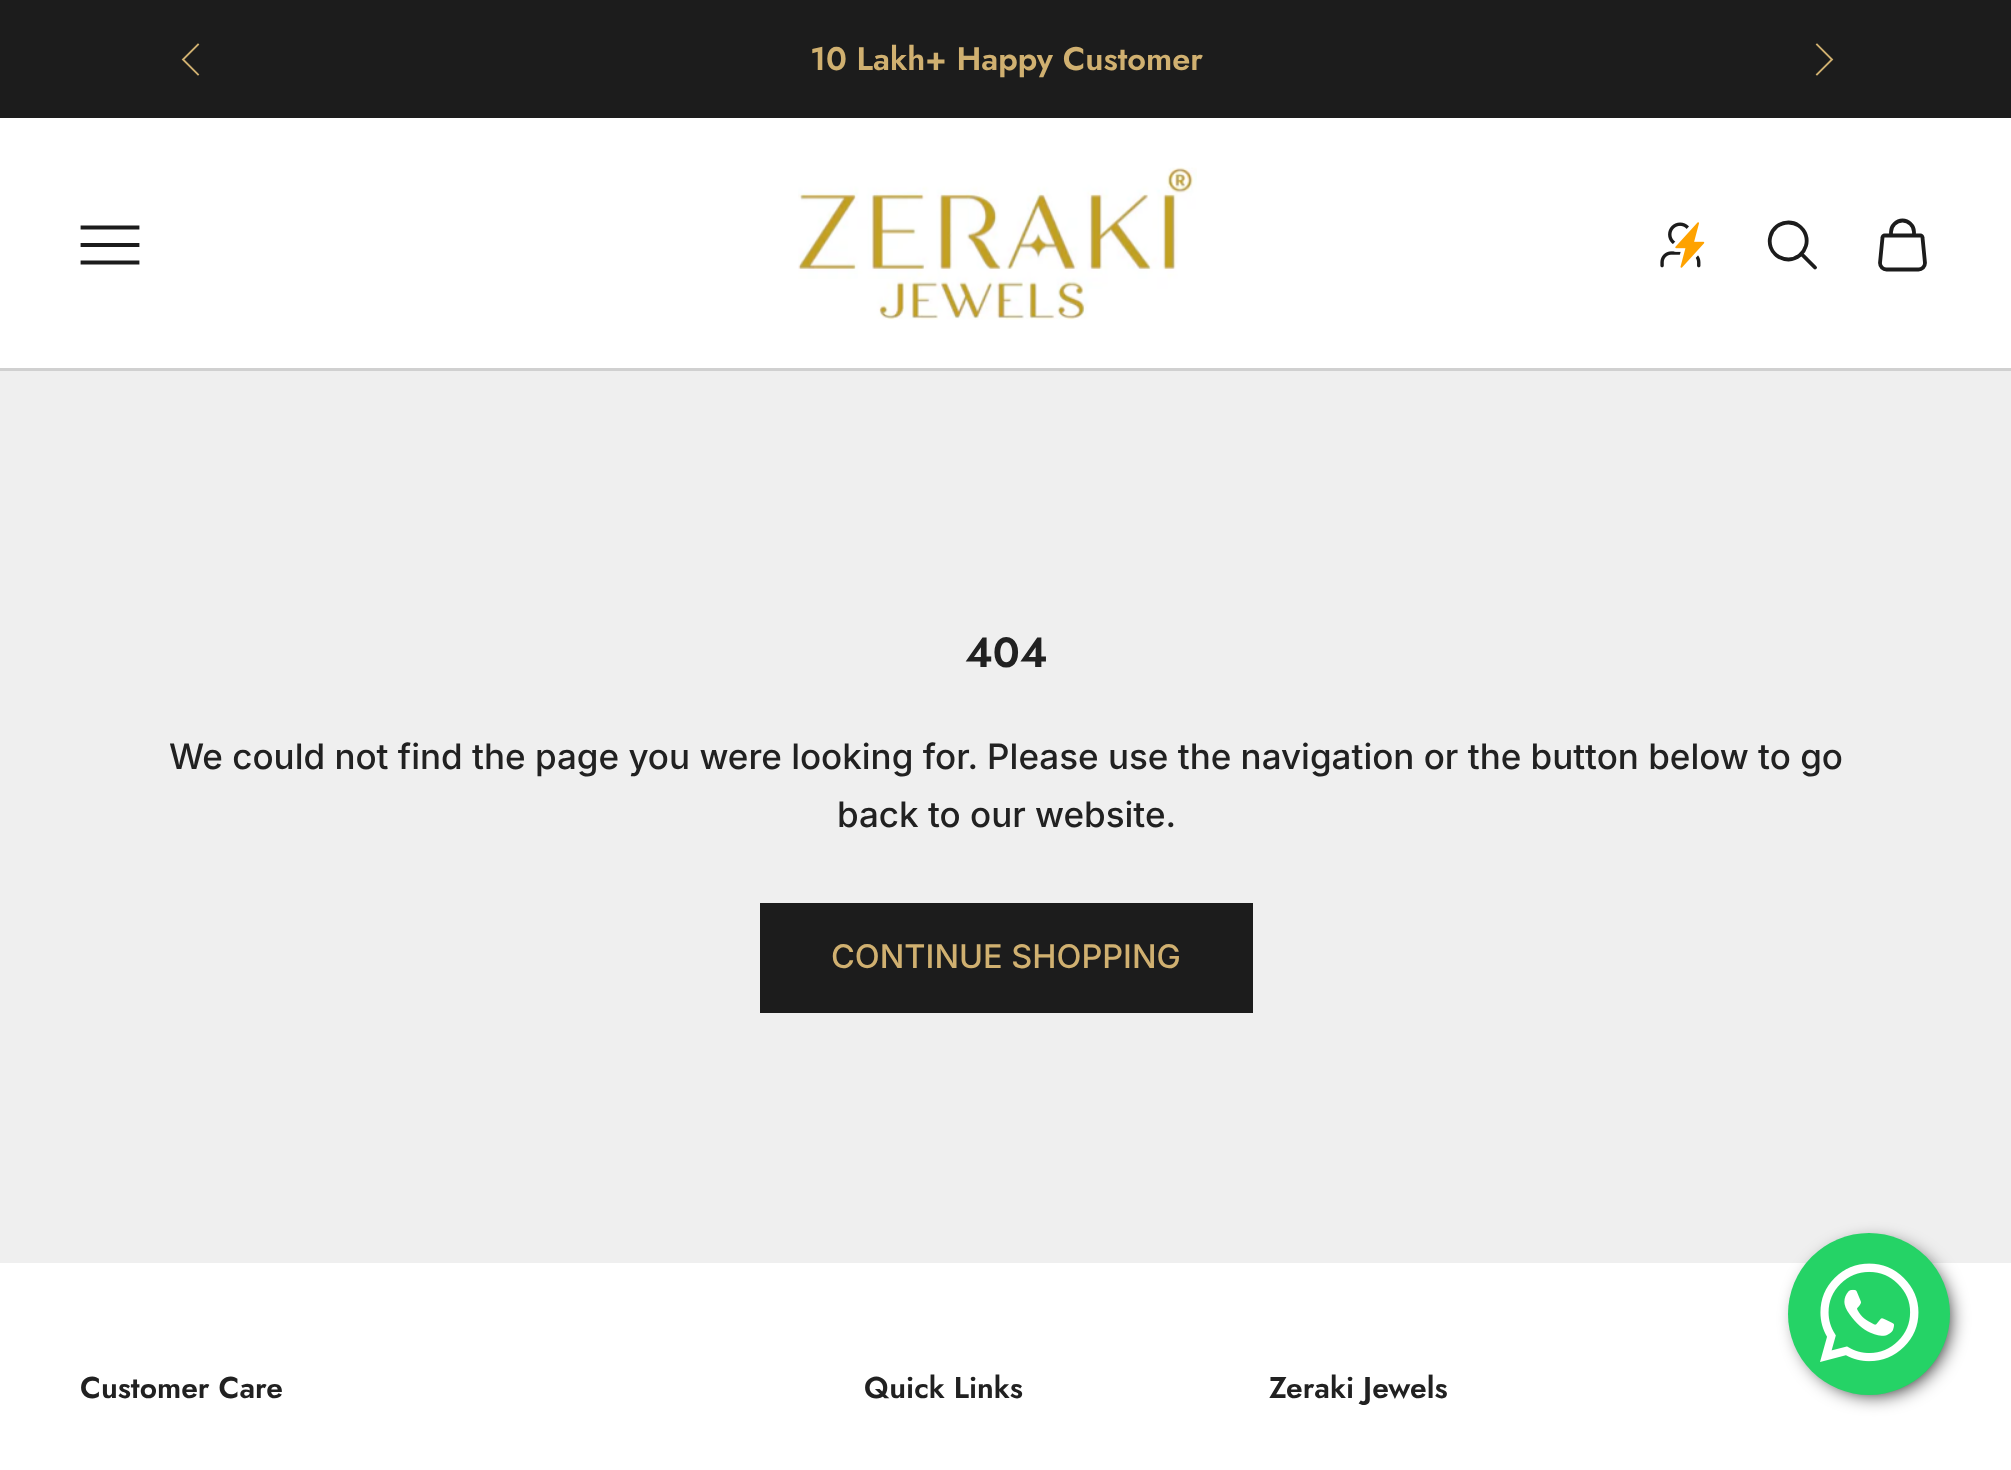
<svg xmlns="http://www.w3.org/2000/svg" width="2011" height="1470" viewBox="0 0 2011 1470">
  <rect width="100%" height="100%" fill="rgb(239,239,239)"/>
  <rect x="0" y="0" width="2011" height="118" fill="rgb(28,28,28)"/>
  <path d="M198 44.5L183 59.5L198 74.5" fill="none" stroke="rgb(208,176,112)" stroke-width="1.9" stroke-linecap="square"/>
  <text x="810" y="70" font-family="Jost" font-size="32.5" font-weight="600" fill="rgb(208,176,112)">10 Lakh+ Happy Customer</text>
  <path d="M1817 74.5L1832 59.5L1817 44.5" fill="none" stroke="rgb(208,176,112)" stroke-width="1.9" stroke-linecap="square"/>
  <rect x="0" y="118" width="2011" height="250" fill="rgb(255,255,255)"/>
  <rect x="0" y="368" width="2011" height="3" fill="rgb(208,208,208)"/>
  <path d="M82.5 262.5H137.5M82.5 245H137.5M82.5 227.5H137.5" fill="none" stroke="rgb(28,28,28)" stroke-width="3.8" stroke-linecap="square"/>
  <image x="798" y="167" width="399" height="153" href="pic1.png"/>
  <image x="1660" y="222" width="45" height="46" href="pic2.png"/>
  <path d="M1788.5 222.5C1769.5 222.5 1762.5 247.5 1779 257C1782 258.5 1785 259.5 1788.5 259.5C1806.5 258.5 1813.5 236 1798.5 225.5C1795.5 223.5 1792 222.5 1788.5 222.5Z" fill="none" stroke="rgb(28,28,28)" stroke-width="3.8"/>
  <path d="M1802 254.5L1815 267.5" fill="none" stroke="rgb(28,28,28)" stroke-width="3.8" stroke-linecap="round"/>
  <path d="M1884.5 235.5C1883.5 235.5 1882.5 236.5 1882.5 237.5L1880 263C1880 266.5 1883 269.5 1886.5 269.5H1918.5C1922 269.5 1925 266.5 1925 263L1922.5 237.5C1922.5 236.5 1921.5 235.5 1920.5 235.5ZM1891 235.5V232C1891 225.5 1896.5 220.5 1902.5 220.5C1908.5 220.5 1914 225.5 1914 232V235.5" fill="none" stroke="rgb(28,28,28)" stroke-width="3.8" stroke-linecap="round" stroke-linejoin="round"/>
  <text x="965" y="667" font-family="Jost" font-size="42" font-weight="600" fill="rgb(33,33,33)">404</text>
  <g font-family="Inter" font-size="35" font-weight="500" fill="rgb(33,33,33)">
    <text x="169" y="769">We could not find the page you were looking for. Please use the navigation or the button below to go</text>
    <text x="837" y="827">back to our website.</text>
  </g>
  <rect x="761.5" y="904.5" width="490" height="107" fill="rgb(28,28,28)" stroke="rgb(28,28,28)" stroke-width="3"/>
  <text x="831" y="968" font-family="Inter" font-size="32.5" font-weight="500" fill="rgb(208,176,112)">CONTINUE SHOPPING</text>
  <rect x="0" y="1263" width="2011" height="207" fill="rgb(255,255,255)"/>
  <g font-family="Jost" font-size="30" font-weight="600" fill="rgb(33,33,33)">
    <text x="80" y="1398">Customer Care</text>
    <text x="864" y="1398">Quick Links</text>
    <text x="1269" y="1398">Zeraki Jewels</text>
  </g>
  <rect x="1800" y="1245" width="148" height="148" rx="74" fill="rgb(0,0,0)" filter="blur(10px)"/>
  <circle cx="1869" cy="1314" r="81" fill="rgb(37,211,102)"/>
  <image x="1820" y="1263" width="99" height="99" href="pic3.png"/>
</svg>
